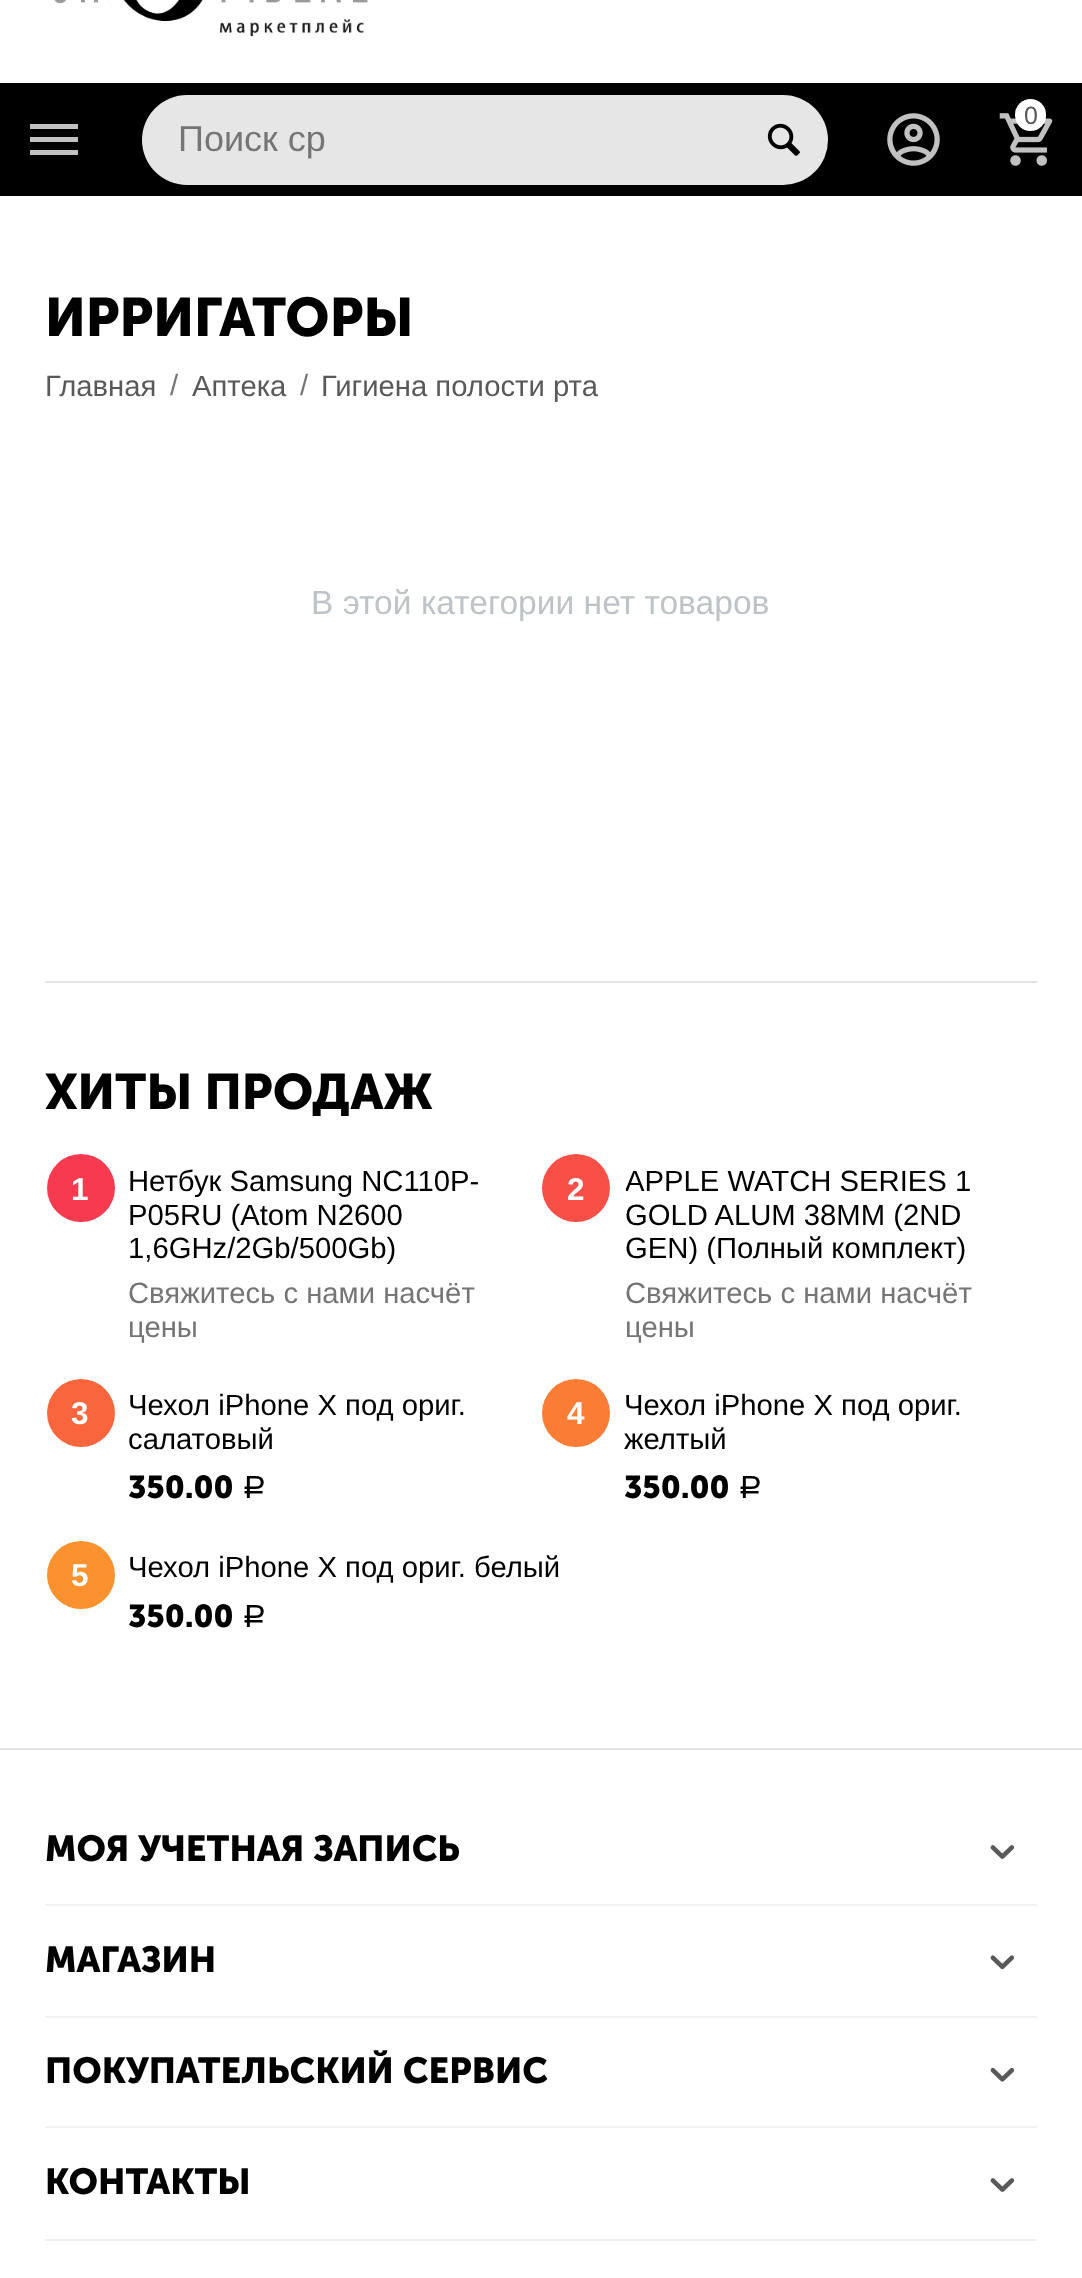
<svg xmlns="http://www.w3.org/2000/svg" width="1082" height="2278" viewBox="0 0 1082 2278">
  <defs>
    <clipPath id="clip1"><rect x="626" y="1166" width="389" height="180"/></clipPath>
  </defs>
  <rect width="100%" height="100%" fill="rgb(255,255,255)"/>
  <image x="54" y="0" width="314" height="37" href="pic1.png"/>
  <rect x="0" y="83" width="1082" height="113" fill="rgb(0,0,0)"/>
  <image x="887" y="113" width="53" height="53" href="pic2.png"/>
  <image x="999" y="113" width="54" height="53" href="pic3.png"/>
  <rect x="1015" y="99" width="31" height="32" rx="15.5" fill="rgb(255,255,255)"/>
  <text x="1024" y="124" font-family="Liberation Sans" font-size="25" fill="rgb(89,89,89)">0</text>
  <path d="M30 155H78V150H30ZM30 142H78V137H30ZM30 124V129H78V124Z" fill="rgb(193,193,193)"/>
  <rect x="142" y="95" width="686" height="90" rx="45" fill="rgb(230,230,230)"/>
  <text x="178" y="151" font-family="Liberation Sans" font-size="36" fill="rgb(117,117,117)">Поиск ср</text>
  <image x="767" y="123" width="33" height="33" href="pic4.png"/>
  <text x="45" y="336" font-family="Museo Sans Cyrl" font-size="54" font-weight="bold" fill="rgb(0,0,0)">ИРРИГАТОРЫ</text>
  <text x="45" y="396" font-family="Liberation Sans" font-size="29.25" fill="rgb(89,89,89)">Главная</text>
  <text x="170" y="395" font-family="Liberation Sans" font-size="29.25" fill="rgb(117,117,117)">/</text>
  <text x="192" y="396" font-family="Liberation Sans" font-size="29.25" fill="rgb(89,89,89)">Аптека</text>
  <text x="300" y="395" font-family="Liberation Sans" font-size="29.25" fill="rgb(117,117,117)">/</text>
  <text x="321" y="396" font-family="Liberation Sans" font-size="29.25" fill="rgb(89,89,89)">Гигиена полости рта</text>
  <text x="311" y="614" font-family="Liberation Sans" font-size="33.6" fill="rgb(189,195,199)">В этой категории нет товаров</text>
  <rect x="45" y="981" width="992" height="2" fill="rgb(227,227,227)"/>
  <text x="45" y="1109" font-family="Museo Sans Cyrl" font-size="49.5" font-weight="bold" fill="rgb(0,0,0)">ХИТЫ ПРОДАЖ</text>
  <circle cx="81" cy="1188" r="34" fill="rgb(247,58,80)"/>
  <text x="71" y="1200" font-family="Liberation Sans" font-size="31.5" font-weight="bold" fill="rgb(255,255,255)">1</text>
  <g font-family="Liberation Sans" font-size="29.25" fill="rgb(0,0,0)">
    <text>
      <tspan x="128" y="1191">Нетбук Samsung NC110P-</tspan>
      <tspan x="128" y="1225">P05RU (Atom N2600</tspan>
      <tspan x="128" y="1258">1,6GHz/2Gb/500Gb)</tspan>
    </text>
  </g>
  <g font-family="Liberation Sans" font-size="29.25" fill="rgb(117,117,117)">
    <text>
      <tspan x="128" y="1303">Свяжитесь с нами насчёт</tspan>
      <tspan x="128" y="1337">цены</tspan>
    </text>
  </g>
  <circle cx="576" cy="1188" r="34" fill="rgb(248,80,71)"/>
  <text x="567" y="1200" font-family="Liberation Sans" font-size="31.5" font-weight="bold" fill="rgb(255,255,255)">2</text>
  <g clip-path="url(#clip1)">
    <text x="625" y="1191" font-family="Liberation Sans" font-size="29.25" fill="rgb(0,0,0)">APPLE WATCH SERIES 1</text>
  </g>
  <g font-family="Liberation Sans" font-size="29.25" fill="rgb(0,0,0)">
    <text>
      <tspan x="625" y="1225">GOLD ALUM 38MM (2ND</tspan>
      <tspan x="625" y="1258">GEN) (Полный комплект)</tspan>
    </text>
  </g>
  <g font-family="Liberation Sans" font-size="29.25" fill="rgb(117,117,117)">
    <text>
      <tspan x="625" y="1303">Свяжитесь с нами насчёт</tspan>
      <tspan x="625" y="1337">цены</tspan>
    </text>
  </g>
  <circle cx="81" cy="1413" r="34" fill="rgb(249,102,62)"/>
  <text x="71" y="1424" font-family="Liberation Sans" font-size="31.5" font-weight="bold" fill="rgb(255,255,255)">3</text>
  <g font-family="Liberation Sans" font-size="29.25" fill="rgb(0,0,0)">
    <text>
      <tspan x="128" y="1415">Чехол iPhone X под ориг.</tspan>
      <tspan x="128" y="1449">салатовый</tspan>
    </text>
  </g>
  <text x="128" y="1498" font-family="Museo Sans Cyrl" font-size="31.5" font-weight="bold" fill="rgb(0,0,0)">350.00</text>
  <text x="242" y="1498" font-family="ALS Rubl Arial" font-size="31.5" fill="rgb(0,0,0)">Р</text>
  <circle cx="576" cy="1413" r="34" fill="rgb(250,124,53)"/>
  <text x="567" y="1424" font-family="Liberation Sans" font-size="31.5" font-weight="bold" fill="rgb(255,255,255)">4</text>
  <g font-family="Liberation Sans" font-size="29.25" fill="rgb(0,0,0)">
    <text>
      <tspan x="624" y="1415">Чехол iPhone X под ориг.</tspan>
      <tspan x="624" y="1449">желтый</tspan>
    </text>
  </g>
  <text x="624" y="1498" font-family="Museo Sans Cyrl" font-size="31.5" font-weight="bold" fill="rgb(0,0,0)">350.00</text>
  <text x="738" y="1498" font-family="ALS Rubl Arial" font-size="31.5" fill="rgb(0,0,0)">Р</text>
  <circle cx="81" cy="1575" r="34" fill="rgb(251,146,45)"/>
  <text x="71" y="1586" font-family="Liberation Sans" font-size="31.5" font-weight="bold" fill="rgb(255,255,255)">5</text>
  <text x="128" y="1577" font-family="Liberation Sans" font-size="29.25" fill="rgb(0,0,0)">Чехол iPhone X под ориг. белый</text>
  <text x="128" y="1627" font-family="Museo Sans Cyrl" font-size="31.5" font-weight="bold" fill="rgb(0,0,0)">350.00</text>
  <text x="242" y="1627" font-family="ALS Rubl Arial" font-size="31.5" fill="rgb(0,0,0)">Р</text>
  <rect x="0" y="1748" width="1082" height="2" fill="rgb(227,227,227)"/>
  <rect x="45" y="1904" width="992" height="2" fill="rgb(240,240,240)"/>
  <text x="45" y="1861" font-family="Museo Sans Cyrl" font-size="36" font-weight="bold" fill="rgb(0,0,0)">МОЯ УЧЕТНАЯ ЗАПИСЬ</text>
  <image x="990" y="1845" width="25" height="14" href="pic5.png"/>
  <rect x="45" y="2016" width="992" height="2" fill="rgb(240,240,240)"/>
  <text x="45" y="1972" font-family="Museo Sans Cyrl" font-size="36" font-weight="bold" fill="rgb(0,0,0)">МАГАЗИН</text>
  <image x="990" y="1955" width="25" height="15" href="pic6.png"/>
  <rect x="45" y="2126" width="992" height="2" fill="rgb(240,240,240)"/>
  <text x="45" y="2083" font-family="Museo Sans Cyrl" font-size="36" font-weight="bold" fill="rgb(0,0,0)">ПОКУПАТЕЛЬСКИЙ СЕРВИС</text>
  <image x="990" y="2067" width="25" height="15" href="pic7.png"/>
  <rect x="45" y="2239" width="992" height="2" fill="rgb(240,240,240)"/>
  <text x="45" y="2194" font-family="Museo Sans Cyrl" font-size="36" font-weight="bold" fill="rgb(0,0,0)">КОНТАКТЫ</text>
  <image x="990" y="2178" width="25" height="14" href="pic5.png"/>
</svg>
